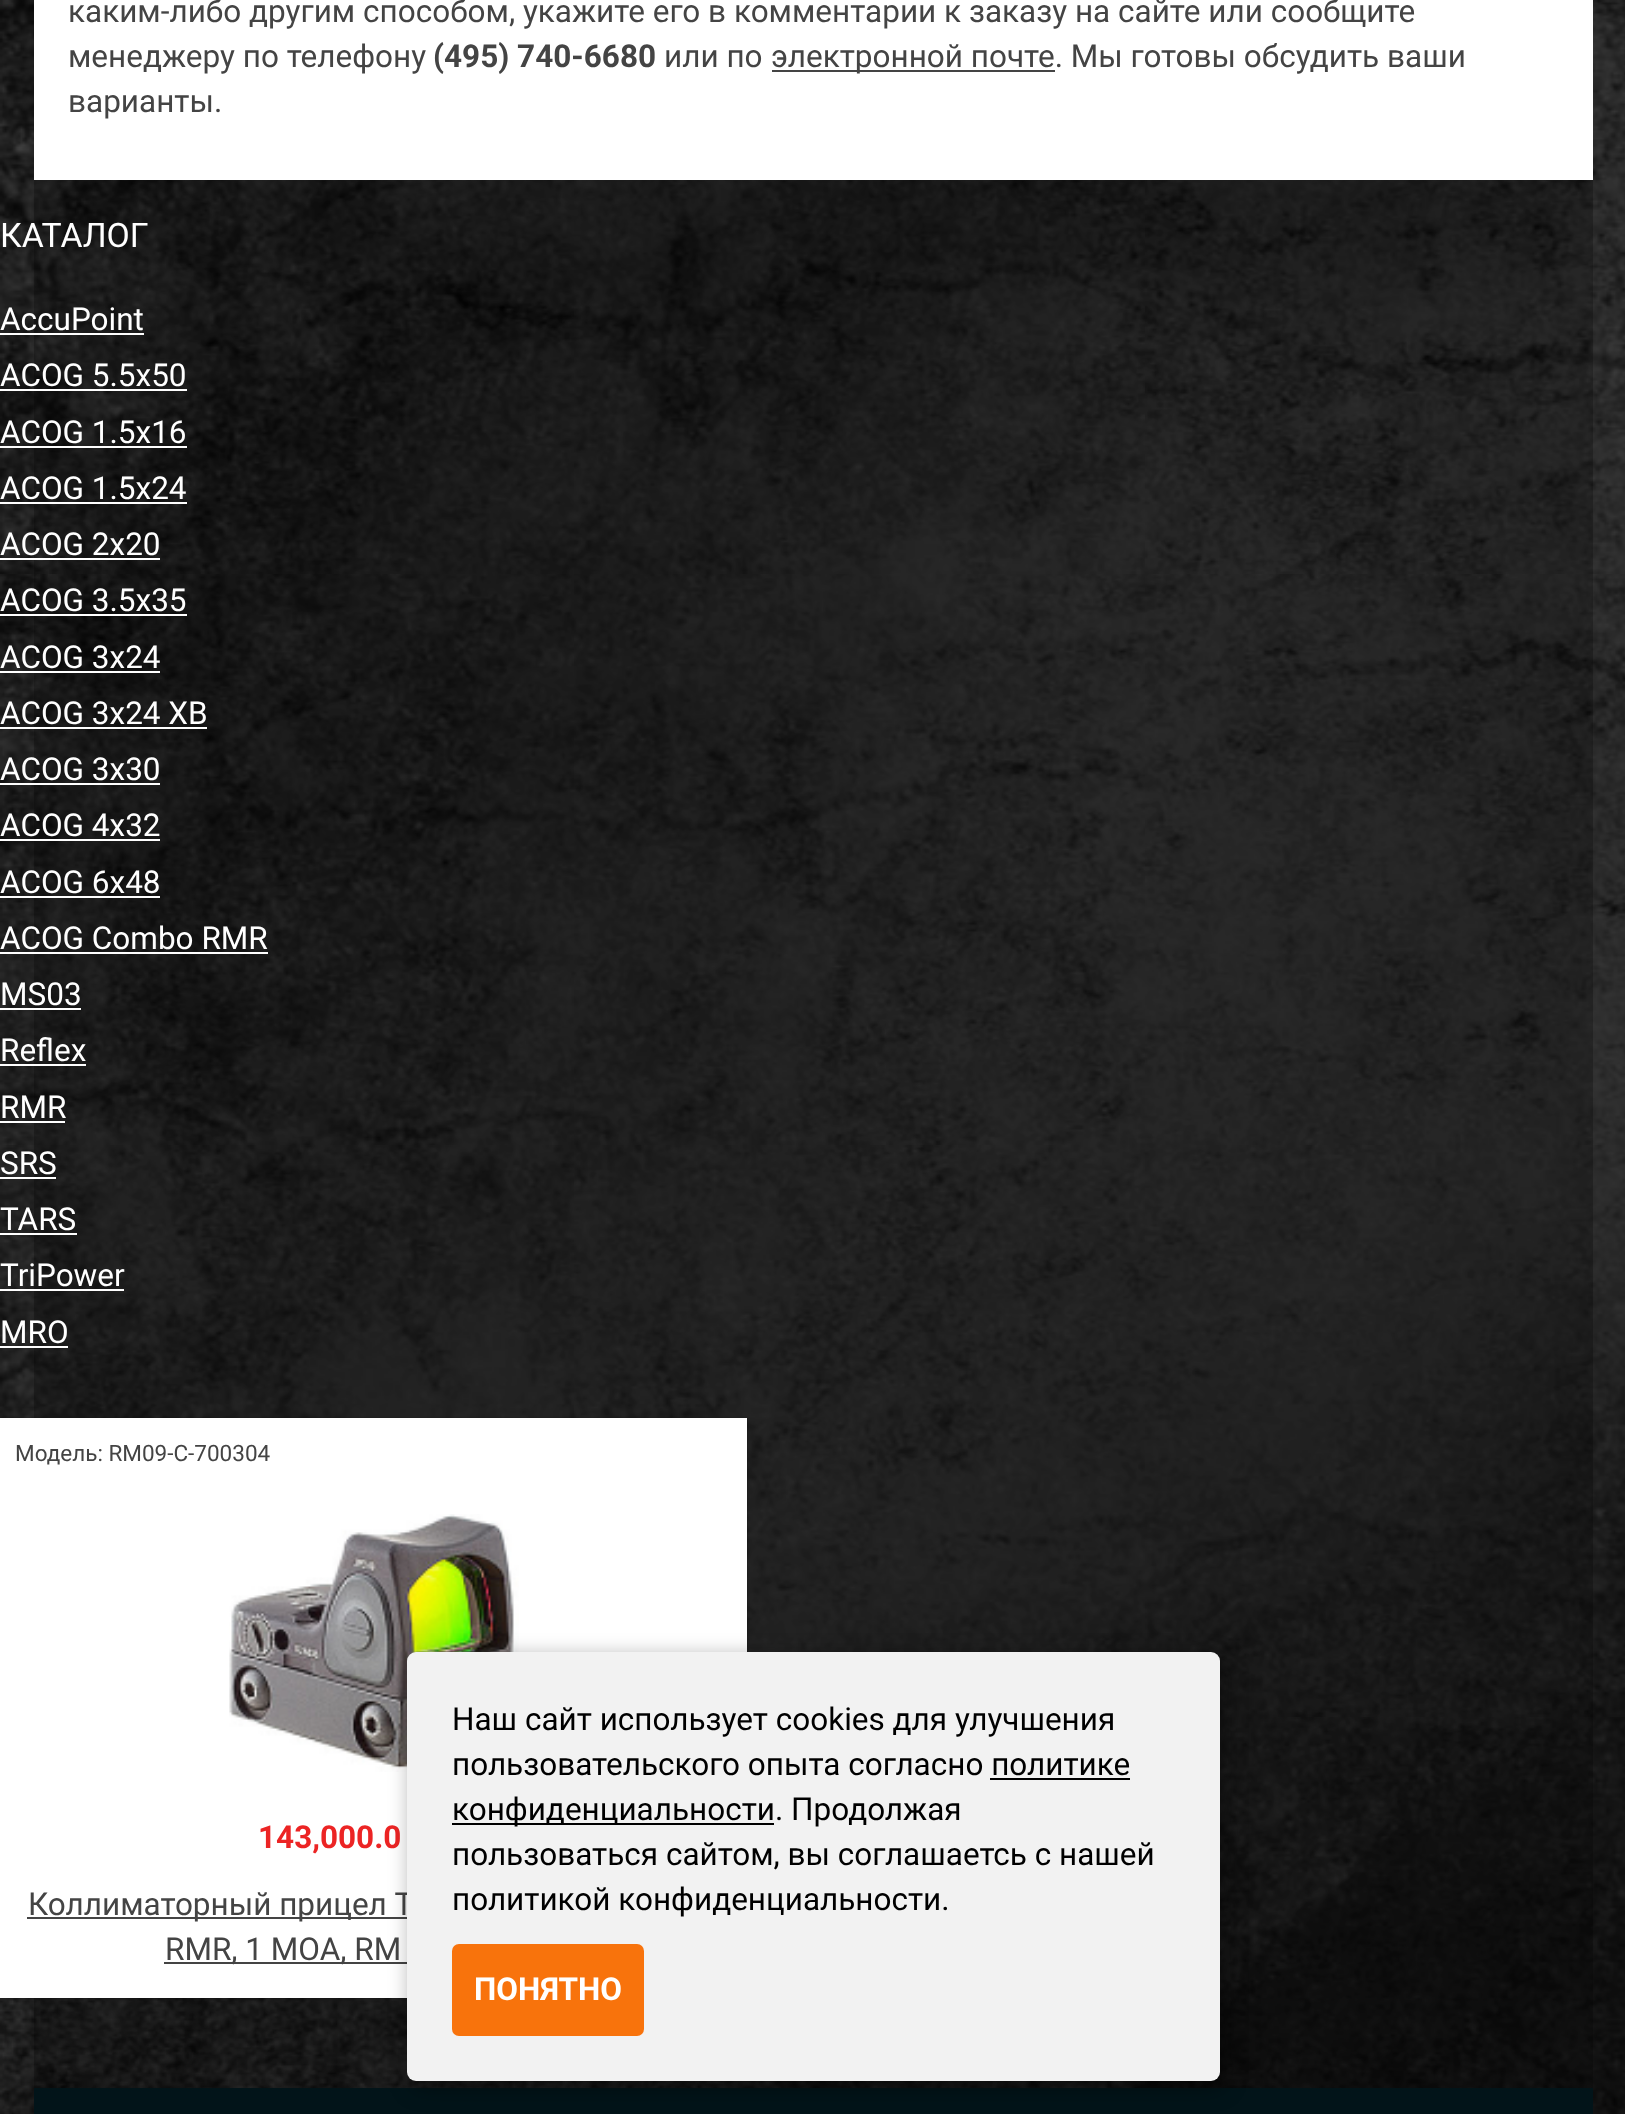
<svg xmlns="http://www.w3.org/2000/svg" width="1625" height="2114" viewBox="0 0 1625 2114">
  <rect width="100%" height="100%" fill="rgb(255,255,255)"/>
  <image x="0" y="0" width="1625" height="2114" href="pic1.png"/>
  <rect x="34" y="0" width="1559" height="180" fill="rgb(255,255,255)"/>
  <g font-family="Roboto" font-size="31.5" fill="rgb(68,68,68)">
    <text>
      <tspan x="68" y="22">каким-либо другим способом, укажите его в комментарии к заказу на сайте или сообщите</tspan>
      <tspan x="68" y="67">менеджеру по телефону</tspan>
    </text>
  </g>
  <text x="433" y="67" font-family="Roboto" font-size="31.5" font-weight="bold" fill="rgb(68,68,68)">(495) 740-6680</text>
  <text x="664" y="67" font-family="Roboto" font-size="31.5" fill="rgb(68,68,68)">или по</text>
  <rect x="772" y="70" width="283" height="2" fill="rgb(68,68,68)"/>
  <g font-family="Roboto" font-size="31.5" fill="rgb(68,68,68)">
    <text x="771" y="67">электронной почте. Мы готовы обсудить ваши</text>
    <text x="68" y="112">варианты.</text>
  </g>
  <text x="0" y="247" font-family="Roboto" font-size="33.75" fill="rgb(255,255,255)">КАТАЛОГ</text>
  <text x="0" y="330" font-family="Roboto" font-size="31.5" fill="rgb(255,255,255)">AccuPoint</text>
  <rect x="0" y="333" width="144" height="2" fill="rgb(255,255,255)"/>
  <text x="0" y="386" font-family="Roboto" font-size="31.5" fill="rgb(255,255,255)">ACOG 5.5x50</text>
  <rect x="0" y="389" width="187" height="2" fill="rgb(255,255,255)"/>
  <text x="0" y="443" font-family="Roboto" font-size="31.5" fill="rgb(255,255,255)">ACOG 1.5x16</text>
  <rect x="0" y="446" width="187" height="2" fill="rgb(255,255,255)"/>
  <text x="0" y="499" font-family="Roboto" font-size="31.5" fill="rgb(255,255,255)">ACOG 1.5x24</text>
  <rect x="0" y="502" width="187" height="2" fill="rgb(255,255,255)"/>
  <text x="0" y="555" font-family="Roboto" font-size="31.5" fill="rgb(255,255,255)">ACOG 2x20</text>
  <rect x="0" y="558" width="160" height="2" fill="rgb(255,255,255)"/>
  <text x="0" y="611" font-family="Roboto" font-size="31.5" fill="rgb(255,255,255)">ACOG 3.5x35</text>
  <rect x="0" y="614" width="187" height="2" fill="rgb(255,255,255)"/>
  <text x="0" y="668" font-family="Roboto" font-size="31.5" fill="rgb(255,255,255)">ACOG 3x24</text>
  <rect x="0" y="671" width="160" height="2" fill="rgb(255,255,255)"/>
  <text x="0" y="724" font-family="Roboto" font-size="31.5" fill="rgb(255,255,255)">ACOG 3x24 XB</text>
  <rect x="0" y="727" width="207" height="2" fill="rgb(255,255,255)"/>
  <text x="0" y="780" font-family="Roboto" font-size="31.5" fill="rgb(255,255,255)">ACOG 3x30</text>
  <rect x="0" y="783" width="160" height="2" fill="rgb(255,255,255)"/>
  <text x="0" y="836" font-family="Roboto" font-size="31.5" fill="rgb(255,255,255)">ACOG 4x32</text>
  <rect x="0" y="839" width="160" height="2" fill="rgb(255,255,255)"/>
  <text x="0" y="893" font-family="Roboto" font-size="31.5" fill="rgb(255,255,255)">ACOG 6x48</text>
  <rect x="0" y="896" width="160" height="2" fill="rgb(255,255,255)"/>
  <text x="0" y="949" font-family="Roboto" font-size="31.5" fill="rgb(255,255,255)">ACOG Combo RMR</text>
  <rect x="0" y="952" width="268" height="2" fill="rgb(255,255,255)"/>
  <text x="0" y="1005" font-family="Roboto" font-size="31.5" fill="rgb(255,255,255)">MS03</text>
  <rect x="0" y="1008" width="81" height="2" fill="rgb(255,255,255)"/>
  <text x="0" y="1061" font-family="Roboto" font-size="31.5" fill="rgb(255,255,255)">Reflex</text>
  <rect x="0" y="1064" width="86" height="2" fill="rgb(255,255,255)"/>
  <text x="0" y="1118" font-family="Roboto" font-size="31.5" fill="rgb(255,255,255)">RMR</text>
  <rect x="0" y="1121" width="65" height="2" fill="rgb(255,255,255)"/>
  <text x="0" y="1174" font-family="Roboto" font-size="31.5" fill="rgb(255,255,255)">SRS</text>
  <rect x="0" y="1177" width="56" height="2" fill="rgb(255,255,255)"/>
  <text x="0" y="1230" font-family="Roboto" font-size="31.5" fill="rgb(255,255,255)">TARS</text>
  <rect x="0" y="1233" width="77" height="2" fill="rgb(255,255,255)"/>
  <text x="0" y="1286" font-family="Roboto" font-size="31.5" fill="rgb(255,255,255)">TriPower</text>
  <rect x="0" y="1289" width="124" height="2" fill="rgb(255,255,255)"/>
  <text x="0" y="1343" font-family="Roboto" font-size="31.5" fill="rgb(255,255,255)">MRO</text>
  <rect x="0" y="1346" width="68" height="2" fill="rgb(255,255,255)"/>
  <rect x="0" y="1418" width="747" height="580" fill="rgba(0,0,0,0.25)" filter="blur(1px)"/>
  <rect x="0" y="1418" width="747" height="580" fill="rgb(255,255,255)"/>
  <text x="15" y="1461" font-family="Roboto" font-size="22.5" fill="rgb(68,68,68)">Модель: RM09-C-700304</text>
  <image x="229" y="1514" width="290" height="258" href="pic2.png"/>
  <text x="258" y="1848" font-family="Roboto" font-size="31.5" font-weight="bold" fill="rgb(236,36,36)">143,000.0</text>
  <rect x="27" y="1917" width="380" height="2" fill="rgb(68,68,68)"/>
  <text x="28" y="1915" font-family="Roboto" font-size="31.5" fill="rgb(68,68,68)">Коллиматорный прицел T</text>
  <rect x="164" y="1962" width="243" height="2" fill="rgb(68,68,68)"/>
  <text x="165" y="1960" font-family="Roboto" font-size="31.5" fill="rgb(68,68,68)">RMR, 1 MOA, RM</text>
  <rect x="34" y="2088" width="1559" height="26" fill="rgb(2,20,25)"/>
  <rect x="412" y="1658" width="812" height="430" rx="9" fill="rgba(0,0,0,0.4)" filter="blur(11px)"/>
  <rect x="407" y="1652" width="813" height="429" rx="9" fill="rgb(242,242,242)"/>
  <g font-family="Roboto" font-size="31.5" fill="rgb(0,0,0)">
    <text>
      <tspan x="452" y="1730">Наш сайт использует cookies для улучшения</tspan>
      <tspan x="452" y="1775">пользовательского опыта согласно политике</tspan>
    </text>
  </g>
  <rect x="452" y="1823" width="322" height="2" fill="rgb(0,0,0)"/>
  <text x="452" y="1820" font-family="Roboto" font-size="31.5" fill="rgb(0,0,0)">конфиденциальности. Продолжая</text>
  <rect x="990" y="1778" width="140" height="2" fill="rgb(0,0,0)"/>
  <g font-family="Roboto" font-size="31.5" fill="rgb(0,0,0)">
    <text>
      <tspan x="452" y="1865">пользоваться сайтом, вы соглашаетсь с нашей</tspan>
      <tspan x="452" y="1910">политикой конфиденциальности.</tspan>
    </text>
  </g>
  <rect x="452" y="1944" width="192" height="92" rx="7" fill="rgb(248,115,12)"/>
  <text x="474" y="2000" font-family="Roboto" font-size="31.5" font-weight="bold" fill="rgb(255,255,255)">ПОНЯТНО</text>
</svg>
